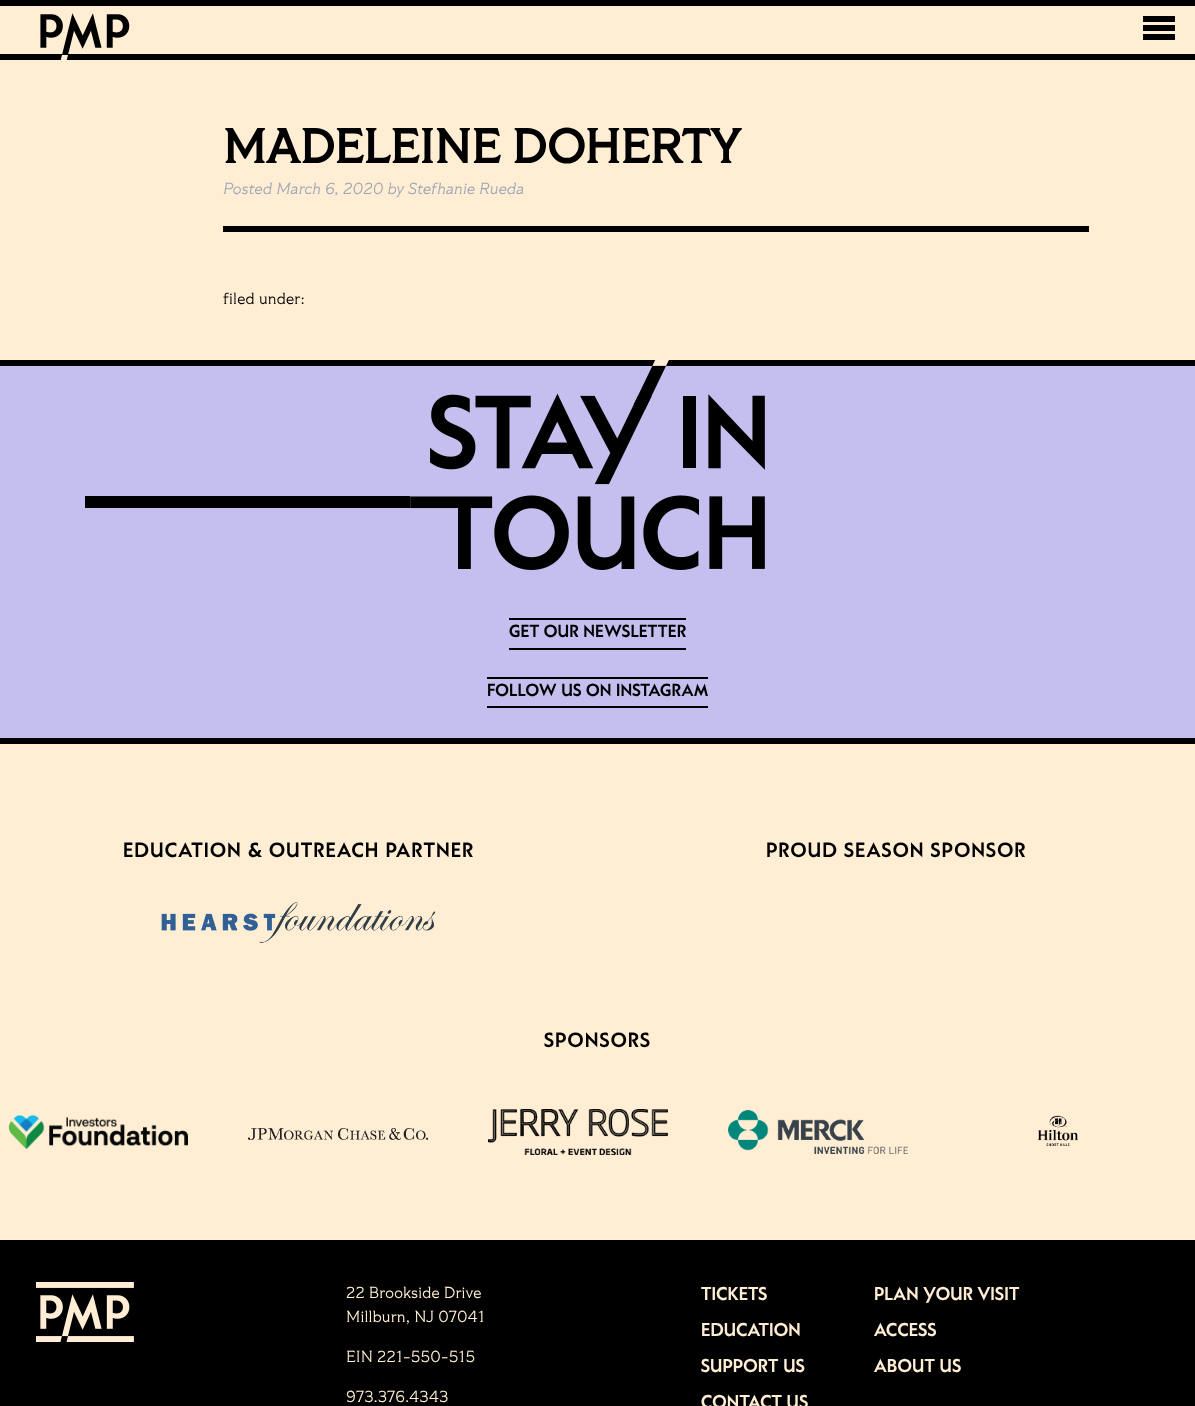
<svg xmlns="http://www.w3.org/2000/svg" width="1195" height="1406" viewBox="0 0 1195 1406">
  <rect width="100%" height="100%" fill="rgb(255,238,212)"/>
  <rect x="0" y="0" width="1195" height="6" fill="rgb(0,0,0)"/>
  <rect x="0" y="54" width="1195" height="6" fill="rgb(0,0,0)"/>
  <image x="40" y="13" width="90" height="47" href="pic1.png"/>
  <rect x="1143" y="16" width="32" height="6" fill="rgb(0,0,0)"/>
  <rect x="1143" y="25" width="32" height="6" fill="rgb(0,0,0)"/>
  <rect x="1143" y="34" width="32" height="6" fill="rgb(0,0,0)"/>
  <rect x="223" y="226" width="866" height="6" fill="rgb(0,0,0)"/>
  <text x="223" y="163" font-family="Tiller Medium" font-size="48" font-weight="bold" letter-spacing="0.15" fill="rgb(0,0,0)">MADELEINE DOHERTY</text>
  <text x="223" y="194" font-family="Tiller" font-size="16" font-style="italic" letter-spacing="0.15" fill="rgb(159,166,180)">Posted March 6, 2020 by Stefhanie Rueda</text>
  <text x="223" y="304" font-family="Tiller" font-size="16" letter-spacing="0.15" fill="rgb(0,0,0)">filed under:</text>
  <rect x="0" y="366" width="1195" height="372" fill="rgb(196,191,238)"/>
  <rect x="0" y="360" width="1195" height="6" fill="rgb(0,0,0)"/>
  <rect x="0" y="738" width="1195" height="6" fill="rgb(0,0,0)"/>
  <image x="85" y="360" width="680" height="210" href="pic2.png"/>
  <rect x="509" y="618" width="177" height="2" fill="rgb(0,0,0)"/>
  <rect x="509" y="648" width="177" height="2" fill="rgb(0,0,0)"/>
  <text x="509" y="637" font-family="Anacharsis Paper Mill" font-size="17" font-weight="bold" letter-spacing="0.15" fill="rgb(0,0,0)">GET OUR NEWSLETTER</text>
  <rect x="487" y="677" width="221" height="2" fill="rgb(0,0,0)"/>
  <rect x="487" y="706" width="221" height="2" fill="rgb(0,0,0)"/>
  <text x="487" y="696" font-family="Anacharsis Paper Mill" font-size="17" font-weight="bold" letter-spacing="0.15" fill="rgb(0,0,0)">FOLLOW US ON INSTAGRAM</text>
  <text x="123" y="857" font-family="Anacharsis Paper Mill" font-size="20" font-weight="bold" letter-spacing="1.05" fill="rgb(0,0,0)">EDUCATION &amp; OUTREACH PARTNER</text>
  <image x="161" y="902" width="275" height="41" href="pic3.png"/>
  <g font-family="Anacharsis Paper Mill" font-size="20" font-weight="bold" letter-spacing="1.05" fill="rgb(0,0,0)">
    <text x="766" y="857">PROUD SEASON SPONSOR</text>
    <text x="544" y="1047">SPONSORS</text>
  </g>
  <image x="8" y="1115" width="180" height="34" href="pic4.png"/>
  <image x="248" y="1128" width="180" height="12" href="pic5.png"/>
  <image x="488" y="1109" width="180" height="46" href="pic6.png"/>
  <image x="728" y="1110" width="180" height="44" href="pic7.png"/>
  <image x="1037" y="1115" width="41" height="32" href="pic8.png"/>
  <rect x="0" y="1240" width="1195" height="166" fill="rgb(0,0,0)"/>
  <image x="36" y="1282" width="98" height="60" href="pic9.png"/>
  <g font-family="Tiller" font-size="16" letter-spacing="0.15" fill="rgb(255,238,212)">
    <text>
      <tspan x="346" y="1298">22 Brookside Drive</tspan>
      <tspan x="346" y="1322">Millburn, NJ 07041</tspan>
    </text>
    <text x="346" y="1362">EIN 221-550-515</text>
    <text x="346" y="1402">973.376.4343</text>
  </g>
  <g font-family="Anacharsis Paper Mill" font-size="18" font-weight="bold" letter-spacing="0.15" fill="rgb(255,238,212)">
    <text x="701" y="1300">TICKETS</text>
    <text x="874" y="1300">PLAN YOUR VISIT</text>
    <text x="701" y="1336">EDUCATION</text>
    <text x="874" y="1336">ACCESS</text>
    <text x="701" y="1372">SUPPORT US</text>
    <text x="874" y="1372">ABOUT US</text>
    <text x="701" y="1408">CONTACT US</text>
  </g>
</svg>
